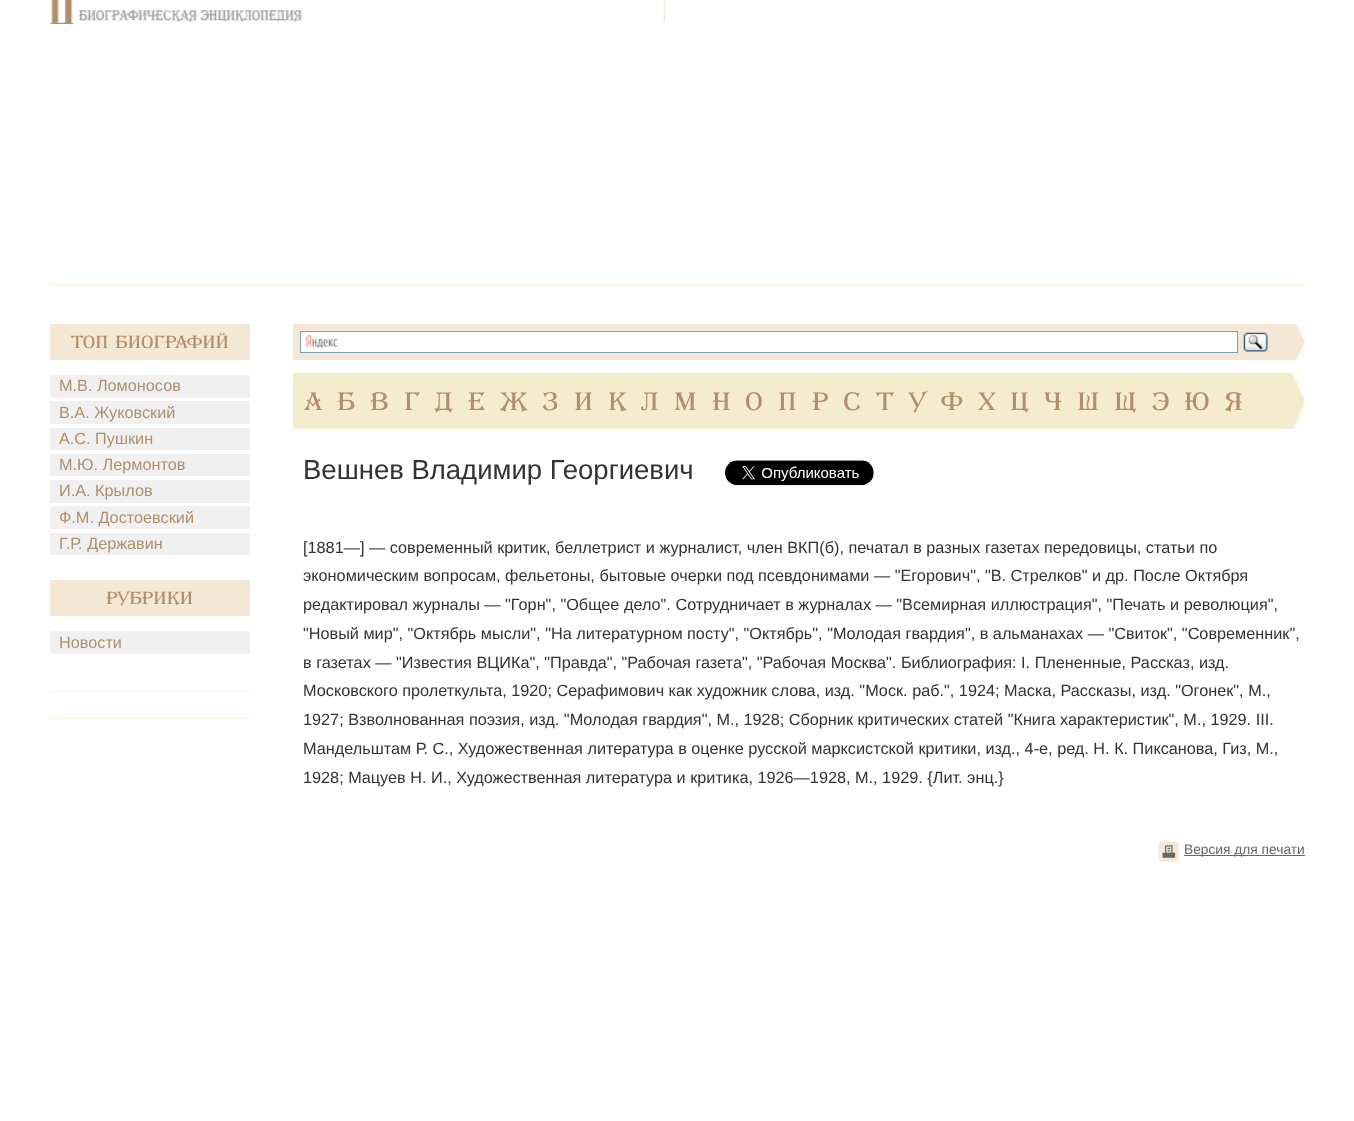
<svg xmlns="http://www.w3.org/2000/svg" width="1354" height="1121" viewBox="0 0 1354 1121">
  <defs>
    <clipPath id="clip1"><rect x="1268" y="324" width="37" height="36"/></clipPath>
  </defs>
  <rect width="100%" height="100%" fill="rgb(255,255,255)"/>
  <rect x="50" y="284" width="1255" height="1" fill="rgb(244,233,213)"/>
  <image x="50" y="0" width="253" height="24" href="pic1.png"/>
  <image x="663" y="0" width="2" height="23" href="pic2.png"/>
  <rect x="50" y="324" width="200" height="36" fill="rgb(244,232,212)"/>
  <text x="71" y="348" font-family="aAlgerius" font-size="17.5" fill="rgb(177,143,108)">Топ Биографий</text>
  <rect x="50" y="375" width="200" height="23" fill="rgb(240,240,240)"/>
  <text x="59" y="391" font-family="Liberation Sans" font-size="16.25" fill="rgb(177,143,108)">М.В. Ломоносов</text>
  <rect x="50" y="401" width="200" height="23" fill="rgb(240,240,240)"/>
  <text x="59" y="418" font-family="Liberation Sans" font-size="16.25" fill="rgb(177,143,108)">В.А. Жуковский</text>
  <rect x="50" y="428" width="200" height="22" fill="rgb(240,240,240)"/>
  <text x="59" y="444" font-family="Liberation Sans" font-size="16.25" fill="rgb(177,143,108)">А.С. Пушкин</text>
  <rect x="50" y="454" width="200" height="22" fill="rgb(240,240,240)"/>
  <text x="59" y="470" font-family="Liberation Sans" font-size="16.25" fill="rgb(177,143,108)">М.Ю. Лермонтов</text>
  <rect x="50" y="480" width="200" height="23" fill="rgb(240,240,240)"/>
  <text x="59" y="496" font-family="Liberation Sans" font-size="16.25" fill="rgb(177,143,108)">И.А. Крылов</text>
  <rect x="50" y="506" width="200" height="23" fill="rgb(240,240,240)"/>
  <text x="59" y="523" font-family="Liberation Sans" font-size="16.25" fill="rgb(177,143,108)">Ф.М. Достоевский</text>
  <rect x="50" y="533" width="200" height="22" fill="rgb(240,240,240)"/>
  <text x="59" y="549" font-family="Liberation Sans" font-size="16.25" fill="rgb(177,143,108)">Г.Р. Державин</text>
  <rect x="50" y="580" width="200" height="36" fill="rgb(244,232,212)"/>
  <text x="106" y="604" font-family="aAlgerius" font-size="17.5" fill="rgb(177,143,108)">Рубрики</text>
  <rect x="50" y="631" width="200" height="23" fill="rgb(240,240,240)"/>
  <text x="59" y="648" font-family="Liberation Sans" font-size="16.25" fill="rgb(177,143,108)">Новости</text>
  <rect x="50" y="691" width="200" height="1" fill="rgb(247,238,223)"/>
  <rect x="50" y="718" width="200" height="1" fill="rgb(247,238,223)"/>
  <rect x="293" y="324" width="975" height="36" fill="rgb(244,232,212)"/>
  <rect x="301" y="332" width="936" height="20" fill="rgb(255,255,255)"/>
  <image x="305" y="335" width="33" height="14" href="pic3.png"/>
  <rect x="300.5" y="331.5" width="937" height="21" fill="none" stroke="rgb(127,157,185)"/>
  <image x="1243" y="332" width="25" height="20" href="pic4.png"/>
  <g clip-path="url(#clip1)">
    <path d="M1268 416V269L1305 342Z" fill="rgb(244,232,212)"/>
  </g>
  <rect x="293" y="373" width="999" height="56" fill="rgb(245,236,206)"/>
  <image x="1291" y="373" width="14" height="56" href="pic5.png"/>
  <g font-family="aAlgerius" font-size="25" fill="rgb(177,143,108)">
    <text x="304" y="410">А</text>
    <text x="337" y="410">Б</text>
    <text x="370" y="410">В</text>
    <text x="404" y="410">Г</text>
    <text x="435" y="410">Д</text>
    <text x="468" y="410">Е</text>
    <text x="500" y="410">Ж</text>
    <text x="542" y="410">З</text>
    <text x="574" y="410">И</text>
    <text x="608" y="410">К</text>
    <text x="641" y="410">Л</text>
    <text x="674" y="410">М</text>
    <text x="712" y="410">Н</text>
    <text x="745" y="410">О</text>
    <text x="778" y="410">П</text>
    <text x="812" y="410">Р</text>
    <text x="843" y="410">С</text>
    <text x="876" y="410">Т</text>
    <text x="908" y="410">У</text>
    <text x="941" y="410">Ф</text>
    <text x="978" y="410">Х</text>
    <text x="1010" y="410">Ц</text>
    <text x="1044" y="410">Ч</text>
    <text x="1077" y="410">Ш</text>
    <text x="1114" y="410">Щ</text>
    <text x="1152" y="410">Э</text>
    <text x="1184" y="410">Ю</text>
    <text x="1225" y="410">Я</text>
  </g>
  <text x="303" y="479" font-family="Liberation Sans" font-size="27.5" fill="rgb(51,51,51)">Вешнев Владимир Георгиевич</text>
  <image x="725" y="460" width="149" height="26" href="pic6.png"/>
  <g font-family="Liberation Sans" font-size="16.25" fill="rgb(51,51,51)">
    <text>
      <tspan x="303" y="553">[1881—] — современный критик, беллетрист и журналист, член ВКП(б), печатал в разных газетах передовицы, статьи по</tspan>
      <tspan x="303" y="581">экономическим вопросам, фельетоны, бытовые очерки под псевдонимами — "Егорович", "В. Стрелков" и др. После Октября</tspan>
      <tspan x="303" y="610">редактировал журналы — "Горн", "Общее дело". Сотрудничает в журналах — "Всемирная иллюстрация", "Печать и революция",</tspan>
      <tspan x="303" y="639">"Новый мир", "Октябрь мысли", "На литературном посту", "Октябрь", "Молодая гвардия", в альманахах — "Свиток", "Современник",</tspan>
      <tspan x="303" y="668">в газетах — "Известия ВЦИКа", "Правда", "Рабочая газета", "Рабочая Москва". Библиография: I. Плененные, Рассказ, изд.</tspan>
      <tspan x="303" y="696">Московского пролеткульта, 1920; Серафимович как художник слова, изд. "Моск. раб.", 1924; Маска, Рассказы, изд. "Огонек", М.,</tspan>
      <tspan x="303" y="725">1927; Взволнованная поэзия, изд. "Молодая гвардия", М., 1928; Сборник критических статей "Книга характеристик", М., 1929. III.</tspan>
      <tspan x="303" y="754">Мандельштам Р. С., Художественная литература в оценке русской марксистской критики, изд., 4-е, ред. Н. К. Пиксанова, Гиз, М.,</tspan>
      <tspan x="303" y="783">1928; Mацуев Н. И., Художественная литература и критика, 1926—1928, М., 1929. {Лит. энц.}</tspan>
    </text>
  </g>
  <image x="1158" y="841" width="21" height="21" href="pic7.png"/>
  <rect x="1184" y="855" width="121" height="1" fill="rgb(102,102,102)"/>
  <text x="1184" y="854" font-family="Liberation Sans" font-size="13.75" fill="rgb(102,102,102)">Версия для печати</text>
</svg>
